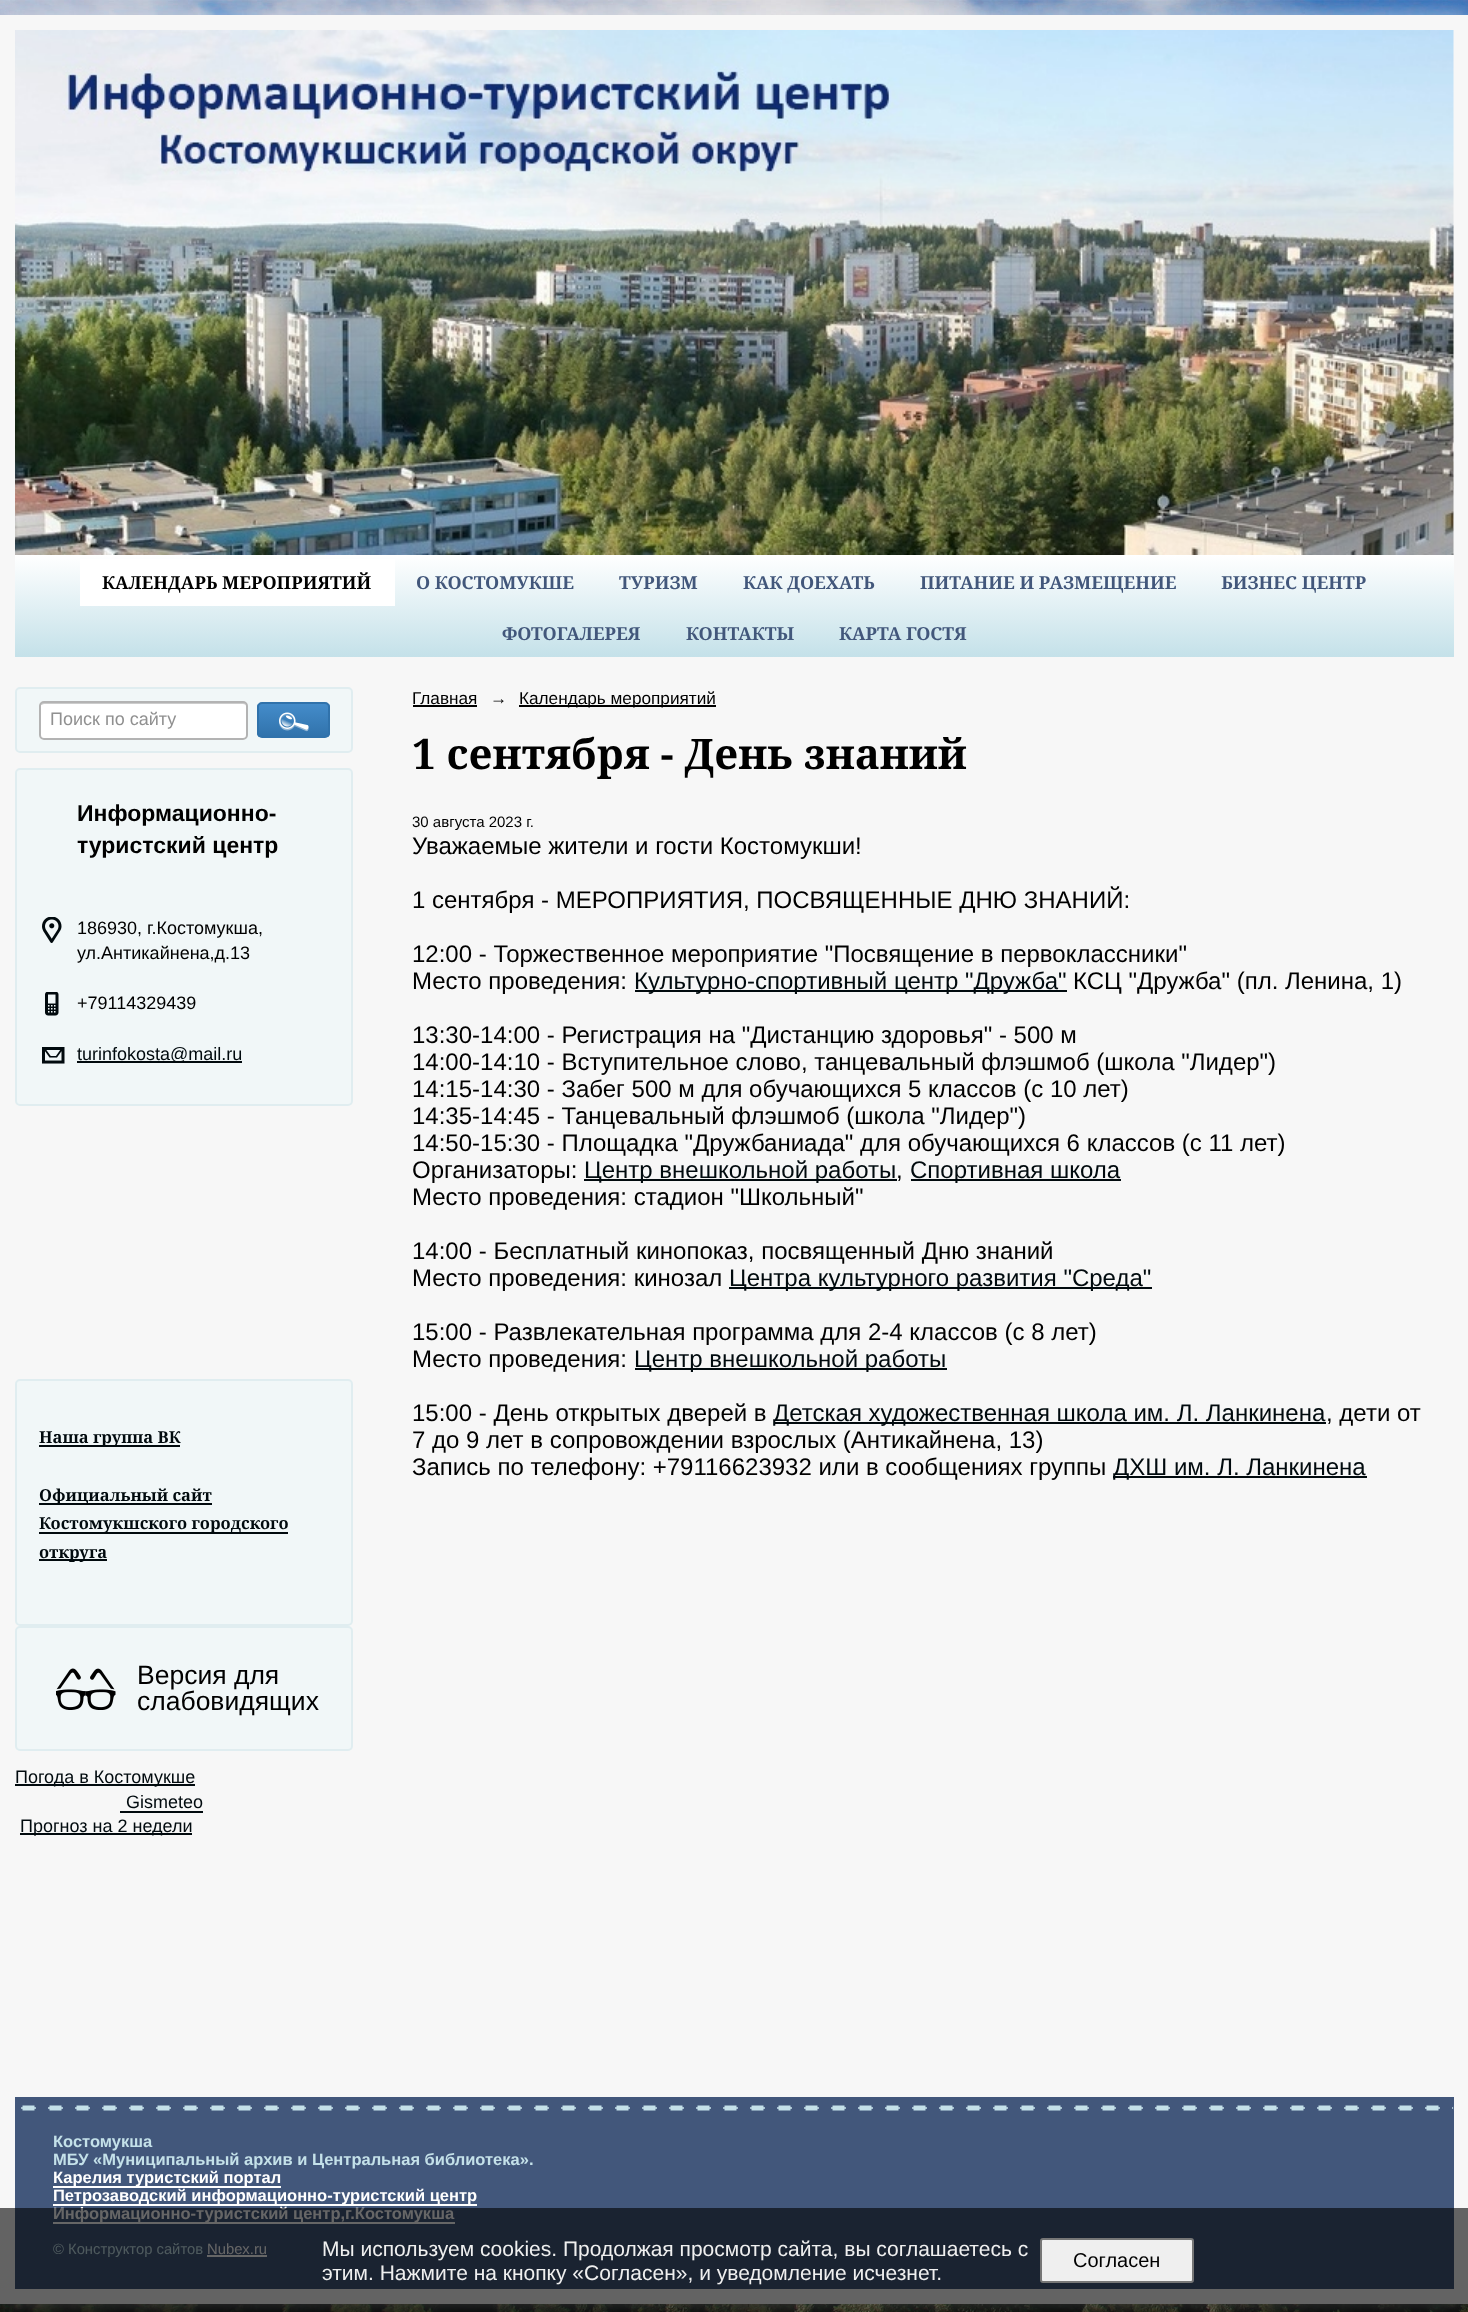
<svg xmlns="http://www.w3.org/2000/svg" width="1468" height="2312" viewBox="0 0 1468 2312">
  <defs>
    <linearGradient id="g1" gradientUnits="userSpaceOnUse" x1="734" y1="555" x2="734" y2="657"><stop offset="0" stop-color="rgb(255,255,255)"/><stop offset="1" stop-color="rgb(196,225,233)"/></linearGradient>
    <clipPath id="clip1"><rect x="257" y="702" width="73" height="36" rx="5"/></clipPath>
    <linearGradient id="g2" gradientUnits="userSpaceOnUse" x1="293" y1="704" x2="293" y2="737"><stop offset="0" stop-color="rgb(68,140,202)"/><stop offset="1" stop-color="rgb(48,114,171)"/></linearGradient>
  </defs>
  <rect width="100%" height="100%" fill="rgb(255,255,255)"/>
  <image x="0" y="0" width="1468" height="2312" href="pic1.png"/>
  <rect x="0" y="15" width="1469" height="2289" fill="rgba(247,247,247,0.6)" filter="blur(10.5px)"/>
  <rect x="0" y="15" width="1468" height="2289" fill="rgb(247,247,247)"/>
  <image x="15" y="30" width="1439" height="525" href="pic2.png"/>
  <rect x="15" y="555" width="1439" height="102" fill="url(#g1)"/>
  <rect x="80" y="559" width="315" height="47" fill="rgb(255,255,255)"/>
  <text x="102" y="589" font-family="Noto Serif" font-size="18" font-weight="bold" fill="rgb(0,0,0)">КАЛЕНДАРЬ МЕРОПРИЯТИЙ</text>
  <g font-family="Noto Serif" font-size="18" font-weight="bold" fill="rgb(66,87,123)">
    <text x="416" y="589">О КОСТОМУКШЕ</text>
    <text x="619" y="589">ТУРИЗМ</text>
    <text x="743" y="589">КАК ДОЕХАТЬ</text>
    <text x="920" y="589">ПИТАНИЕ И РАЗМЕЩЕНИЕ</text>
    <text x="1221" y="589">БИЗНЕС ЦЕНТР</text>
    <text x="502" y="640">ФОТОГАЛЕРЕЯ</text>
    <text x="686" y="640">КОНТАКТЫ</text>
    <text x="839" y="640">КАРТА ГОСТЯ</text>
  </g>
  <rect x="16" y="688" width="336" height="64" rx="4" fill="rgb(241,247,248)" stroke="rgb(224,237,240)" stroke-width="2"/>
  <rect x="39" y="701" width="209" height="39" rx="5" fill="rgb(255,255,255)"/>
  <path d="M44 704H243C245 704 246 705 246 706C246 704 245 702 243 702H44C42 702 41 703 41 705Z" fill="rgb(204,204,204)"/>
  <rect x="40" y="702" width="207" height="37" rx="4" fill="none" stroke="rgb(179,179,179)" stroke-width="2"/>
  <text x="50" y="725" font-family="Liberation Sans" font-size="18" fill="rgb(144,144,144)">Поиск по сайту</text>
  <g clip-path="url(#clip1)">
    <rect x="257" y="704" width="73" height="33" fill="url(#g2)"/>
  </g>
  <rect x="258" y="703" width="71" height="34" rx="4" fill="none" stroke="rgb(48,114,171)" stroke-width="2"/>
  <image x="279" y="712" width="30" height="20" href="pic3.png"/>
  <rect x="16" y="769" width="336" height="336" rx="4" fill="rgb(241,247,248)" stroke="rgb(224,237,240)" stroke-width="2"/>
  <g font-family="Liberation Sans" font-size="23" font-weight="bold" fill="rgb(0,0,0)">
    <text>
      <tspan x="77" y="821">Информационно-</tspan>
      <tspan x="77" y="853">туристский центр</tspan>
    </text>
  </g>
  <image x="42" y="917" width="20" height="26" href="pic4.png"/>
  <g font-family="Liberation Sans" font-size="18" fill="rgb(0,0,0)">
    <text>
      <tspan x="77" y="934">186930, г.Костомукша,</tspan>
      <tspan x="77" y="959">ул.Антикайнена,д.13</tspan>
    </text>
  </g>
  <image x="45" y="992" width="14" height="24" href="pic5.png"/>
  <text x="77" y="1009" font-family="Liberation Sans" font-size="18" fill="rgb(0,0,0)">+79114329439</text>
  <image x="42" y="1047" width="23" height="17" href="pic6.png"/>
  <rect x="77" y="1061" width="165" height="2" fill="rgb(1,10,14)"/>
  <text x="77" y="1060" font-family="Liberation Sans" font-size="18" fill="rgb(1,10,14)">turinfokosta@mail.ru</text>
  <rect x="16" y="1380" width="336" height="245" rx="4" fill="rgb(241,247,248)" stroke="rgb(224,237,240)" stroke-width="2"/>
  <rect x="39" y="1445" width="141" height="2" fill="rgb(1,10,14)"/>
  <text x="39" y="1443" font-family="Noto Serif" font-size="16.5" font-weight="bold" fill="rgb(1,10,14)">Наша группа ВК</text>
  <rect x="39" y="1503" width="173" height="2" fill="rgb(1,10,14)"/>
  <text x="39" y="1501" font-family="Noto Serif" font-size="16.5" font-weight="bold" fill="rgb(1,10,14)">Официальный сайт</text>
  <rect x="39" y="1532" width="249" height="2" fill="rgb(1,10,14)"/>
  <text x="39" y="1529" font-family="Noto Serif" font-size="16.5" font-weight="bold" fill="rgb(1,10,14)">Костомукшского городского</text>
  <rect x="39" y="1559" width="68" height="2" fill="rgb(1,10,14)"/>
  <text x="39" y="1558" font-family="Noto Serif" font-size="16.5" font-weight="bold" fill="rgb(1,10,14)">откруга</text>
  <rect x="15" y="1626" width="338" height="125" rx="5" fill="rgb(241,247,248)"/>
  <image x="56" y="1668" width="60" height="42" href="pic7.png"/>
  <rect x="16" y="1627" width="336" height="123" rx="4" fill="none" stroke="rgb(224,237,240)" stroke-width="2"/>
  <g font-family="Liberation Sans" font-size="26.5" fill="rgb(0,0,0)">
    <text>
      <tspan x="137" y="1684">Версия для</tspan>
      <tspan x="137" y="1710">слабовидящих</tspan>
    </text>
  </g>
  <rect x="15" y="1784" width="180" height="2" fill="rgb(1,10,14)"/>
  <g font-family="Liberation Sans" font-size="18" fill="rgb(1,10,14)">
    <text x="15" y="1783">Погода в Костомукше</text>
    <text x="126" y="1808">Gismeteo</text>
  </g>
  <rect x="120" y="1811" width="83" height="2" fill="rgb(1,10,14)"/>
  <rect x="20" y="1833" width="172" height="2" fill="rgb(1,10,14)"/>
  <text x="20" y="1832" font-family="Liberation Sans" font-size="18" fill="rgb(1,10,14)">Прогноз на 2 недели</text>
  <text x="412" y="704" font-family="Liberation Sans" font-size="17.2" fill="rgb(0,0,0)">Главная</text>
  <rect x="413" y="705" width="64" height="2" fill="rgb(0,0,0)"/>
  <text x="490" y="704" font-family="Liberation Sans" font-size="17.2" font-style="italic" fill="rgb(0,0,0)">→</text>
  <rect x="519" y="705" width="197" height="2" fill="rgb(0,0,0)"/>
  <text x="519" y="704" font-family="Liberation Sans" font-size="17.2" fill="rgb(0,0,0)">Календарь мероприятий</text>
  <text x="412" y="769" font-family="Noto Serif" font-size="42" font-weight="bold" fill="rgb(0,0,0)">1 сентября - День знаний</text>
  <text x="412" y="827" font-family="Liberation Sans" font-size="15" fill="rgb(0,0,0)">30 августа 2023 г.</text>
  <g font-family="Liberation Sans" font-size="24" fill="rgb(0,0,0)">
    <text x="412" y="854">Уважаемые жители и гости Костомукши!</text>
    <text x="412" y="908">1 сентября - МЕРОПРИЯТИЯ, ПОСВЯЩЕННЫЕ ДНЮ ЗНАНИЙ:</text>
    <text>
      <tspan x="412" y="962">12:00 - Торжественное мероприятие "Посвящение в первоклассники"</tspan>
      <tspan x="412" y="989">Место проведения:</tspan>
    </text>
  </g>
  <rect x="635" y="990" width="432" height="2" fill="rgb(1,10,14)"/>
  <text x="634" y="989" font-family="Liberation Sans" font-size="24" fill="rgb(1,10,14)">Культурно-спортивный центр "Дружба"</text>
  <g font-family="Liberation Sans" font-size="24" fill="rgb(0,0,0)">
    <text x="1073" y="989">КСЦ "Дружба" (пл. Ленина, 1)</text>
    <text>
      <tspan x="412" y="1043">13:30-14:00 - Регистрация на "Дистанцию здоровья" - 500 м</tspan>
      <tspan x="412" y="1070">14:00-14:10 - Вступительное слово, танцевальный флэшмоб (школа "Лидер")</tspan>
      <tspan x="412" y="1097">14:15-14:30 - Забег 500 м для обучающихся 5 классов (с 10 лет)</tspan>
      <tspan x="412" y="1124">14:35-14:45 - Танцевальный флэшмоб (школа "Лидер")</tspan>
      <tspan x="412" y="1151">14:50-15:30 - Площадка "Дружбаниада" для обучающихся 6 классов (с 11 лет)</tspan>
      <tspan x="412" y="1178">Организаторы:</tspan>
    </text>
  </g>
  <rect x="584" y="1179" width="313" height="2" fill="rgb(1,10,14)"/>
  <text x="584" y="1178" font-family="Liberation Sans" font-size="24" fill="rgb(1,10,14)">Центр внешкольной работы</text>
  <text x="896" y="1178" font-family="Liberation Sans" font-size="24" fill="rgb(0,0,0)">,</text>
  <rect x="911" y="1179" width="210" height="2" fill="rgb(1,10,14)"/>
  <text x="910" y="1178" font-family="Liberation Sans" font-size="24" fill="rgb(1,10,14)">Спортивная школа</text>
  <g font-family="Liberation Sans" font-size="24" fill="rgb(0,0,0)">
    <text x="412" y="1205">Место проведения: стадион "Школьный"</text>
    <text>
      <tspan x="412" y="1259">14:00 - Бесплатный кинопоказ, посвященный Дню знаний</tspan>
      <tspan x="412" y="1286">Место проведения: кинозал</tspan>
    </text>
  </g>
  <rect x="729" y="1287" width="423" height="2" fill="rgb(1,10,14)"/>
  <text x="729" y="1286" font-family="Liberation Sans" font-size="24" fill="rgb(1,10,14)">Центра культурного развития "Среда"</text>
  <g font-family="Liberation Sans" font-size="24" fill="rgb(0,0,0)">
    <text>
      <tspan x="412" y="1340">15:00 - Развлекательная программа для 2-4 классов (с 8 лет)</tspan>
      <tspan x="412" y="1367">Место проведения:</tspan>
    </text>
  </g>
  <rect x="635" y="1368" width="312" height="2" fill="rgb(1,10,14)"/>
  <text x="634" y="1367" font-family="Liberation Sans" font-size="24" fill="rgb(1,10,14)">Центр внешкольной работы</text>
  <text x="412" y="1421" font-family="Liberation Sans" font-size="24" fill="rgb(0,0,0)">15:00 - День открытых дверей в</text>
  <rect x="774" y="1422" width="552" height="2" fill="rgb(1,10,14)"/>
  <text x="773" y="1421" font-family="Liberation Sans" font-size="24" fill="rgb(1,10,14)">Детская художественная школа им. Л. Ланкинена</text>
  <g font-family="Liberation Sans" font-size="24" fill="rgb(0,0,0)">
    <text x="1326" y="1421">, дети от</text>
    <text>
      <tspan x="412" y="1448">7 до 9 лет в сопровождении взрослых (Антикайнена, 13)</tspan>
      <tspan x="412" y="1475">Запись по телефону: +79116623932 или в сообщениях группы</tspan>
    </text>
  </g>
  <rect x="1113" y="1476" width="254" height="2" fill="rgb(1,10,14)"/>
  <text x="1113" y="1475" font-family="Liberation Sans" font-size="24" fill="rgb(1,10,14)">ДХШ им. Л. Ланкинена</text>
  <rect x="15" y="2097" width="1439" height="192" fill="rgb(66,87,123)"/>
  <image x="21" y="2105" width="1433" height="6" href="pic8.png"/>
  <g font-family="Liberation Sans" font-size="16.5" font-weight="bold" fill="rgb(196,225,233)">
    <text>
      <tspan x="53" y="2147">Костомукша</tspan>
      <tspan x="53" y="2165">МБУ «Муниципальный архив и Центральная библиотека».</tspan>
    </text>
  </g>
  <rect x="53" y="2186" width="228" height="2" fill="rgb(255,255,255)"/>
  <text x="53" y="2183" font-family="Liberation Sans" font-size="16.5" font-weight="bold" fill="rgb(255,255,255)">Карелия туристский портал</text>
  <rect x="53" y="2204" width="424" height="2" fill="rgb(255,255,255)"/>
  <text x="53" y="2201" font-family="Liberation Sans" font-size="16.5" font-weight="bold" fill="rgb(255,255,255)">Петрозаводский информационно-туристский центр</text>
  <rect x="53" y="2222" width="402" height="2" fill="rgb(255,255,255)"/>
  <text x="53" y="2219" font-family="Liberation Sans" font-size="16.5" font-weight="bold" fill="rgb(255,255,255)">Информационно-туристский центр,г.Костомукша</text>
  <text x="53" y="2254" font-family="Liberation Sans" font-size="14.8" fill="rgb(196,225,233)">© Конструктор сайтов</text>
  <text x="207" y="2254" font-family="Liberation Sans" font-size="14.8" fill="rgb(255,255,255)">Nubex.ru</text>
  <rect x="207" y="2255" width="60" height="2" fill="rgb(255,255,255)"/>
  <rect x="0" y="2208" width="1468" height="104" fill="rgba(0,0,0,0.6)"/>
  <g font-family="Liberation Sans" font-size="21" fill="rgb(239,239,239)">
    <text>
      <tspan x="322" y="2256">Мы используем cookies. Продолжая просмотр сайта, вы соглашаетесь с</tspan>
      <tspan x="322" y="2280">этим. Нажмите на кнопку «Согласен», и уведомление исчезнет.</tspan>
    </text>
  </g>
  <rect x="1041" y="2239" width="152" height="43" rx="2" fill="rgb(239,239,239)" stroke="rgb(118,118,118)" stroke-width="2"/>
  <text x="1073" y="2267" font-family="Liberation Sans" font-size="20" fill="rgb(0,0,0)">Согласен</text>
</svg>
